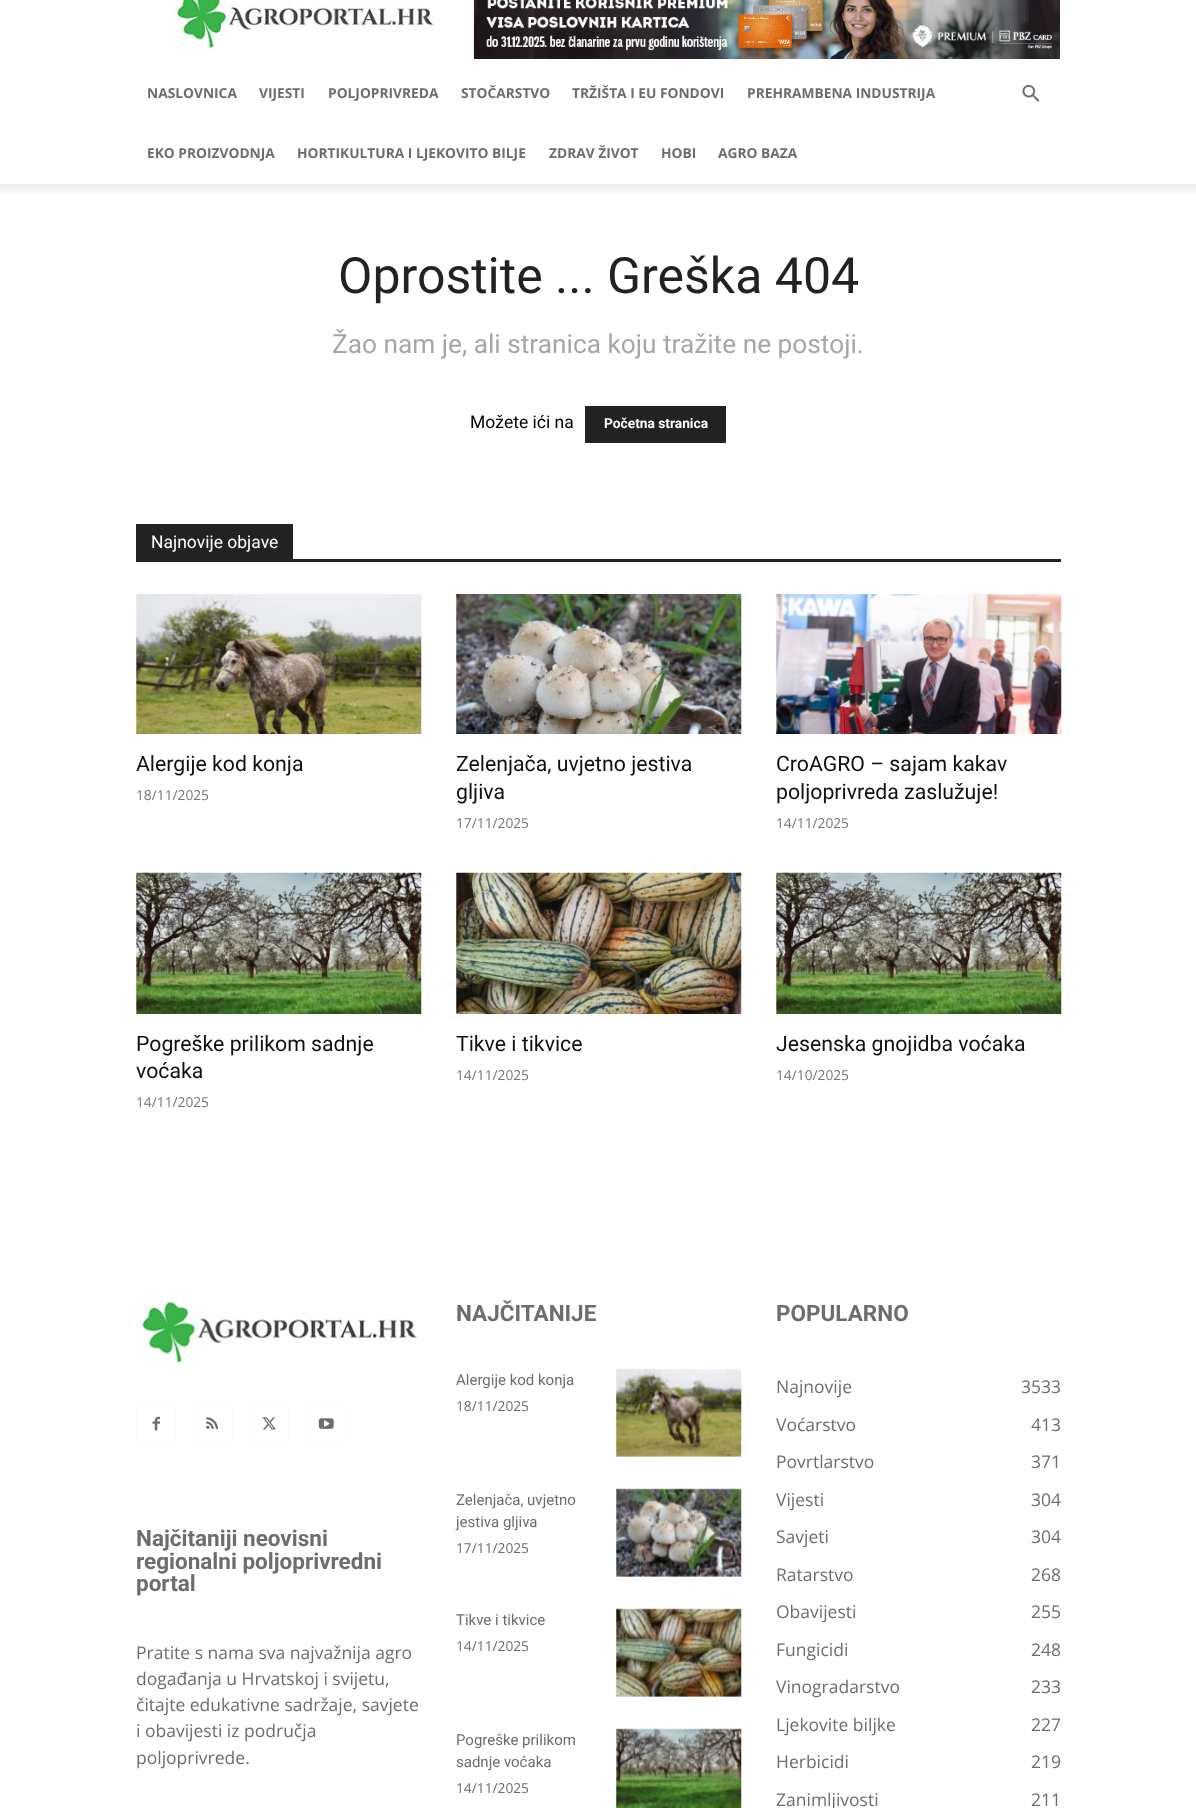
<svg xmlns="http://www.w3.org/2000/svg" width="1196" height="1808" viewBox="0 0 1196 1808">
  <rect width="100%" height="100%" fill="rgb(255,255,255)"/>
  <image x="171" y="0" width="263" height="52" href="pic1.png"/>
  <image x="473" y="0" width="587" height="59" href="pic2.png"/>
  <g font-family="Open Sans" font-size="13.75" font-weight="bold" fill="rgb(109,109,109)">
    <text x="147" y="98">NASLOVNICA</text>
    <text x="259" y="98">VIJESTI</text>
    <text x="328" y="98">POLJOPRIVREDA</text>
    <text x="461" y="98">STOČARSTVO</text>
    <text x="572" y="98">TRŽIŠTA I EU FONDOVI</text>
    <text x="747" y="98">PREHRAMBENA INDUSTRIJA</text>
    <text x="147" y="158">EKO PROIZVODNJA</text>
    <text x="297" y="158">HORTIKULTURA I LJEKOVITO BILJE</text>
    <text x="549" y="158">ZDRAV ŽIVOT</text>
    <text x="661" y="158">HOBI</text>
    <text x="718" y="158">AGRO BAZA</text>
  </g>
  <image x="1022" y="84" width="18" height="18" href="pic3.png"/>
  <image x="0" y="184" width="1196" height="11" href="pic4.png"/>
  <text x="338" y="293" font-family="Roboto" font-size="50" fill="rgb(34,34,34)">Oprostite ... Greška 404</text>
  <text x="332" y="353" font-family="Roboto" font-size="26.25" fill="rgb(166,166,166)">Žao nam je, ali stranica koju tražite ne postoji.</text>
  <text x="470" y="428" font-family="Roboto" font-size="17.5" fill="rgb(0,0,0)">Možete ići na</text>
  <rect x="585" y="406" width="141" height="37" fill="rgb(34,34,34)"/>
  <text x="604" y="428" font-family="Roboto" font-size="13.75" font-weight="bold" fill="rgb(255,255,255)">Početna stranica</text>
  <rect x="136" y="559" width="925" height="3" fill="rgb(34,34,34)"/>
  <rect x="136" y="524" width="157" height="35" fill="rgb(34,34,34)"/>
  <text x="151" y="548" font-family="Roboto" font-size="17.5" fill="rgb(255,255,255)">Najnovije objave</text>
  <image x="136" y="594" width="286" height="140" href="pic5.png"/>
  <text x="136" y="771" font-family="Roboto" font-size="21.25" fill="rgb(17,17,17)">Alergije kod konja</text>
  <text x="136" y="800" font-family="Open Sans" font-size="13.75" fill="rgb(118,118,118)">18/11/2025</text>
  <image x="456" y="594" width="286" height="140" href="pic6.png"/>
  <g font-family="Roboto" font-size="21.25" fill="rgb(17,17,17)">
    <text>
      <tspan x="456" y="771">Zelenjača, uvjetno jestiva</tspan>
      <tspan x="456" y="799">gljiva</tspan>
    </text>
  </g>
  <text x="456" y="828" font-family="Open Sans" font-size="13.75" fill="rgb(118,118,118)">17/11/2025</text>
  <image x="776" y="594" width="286" height="140" href="pic7.png"/>
  <g font-family="Roboto" font-size="21.25" fill="rgb(17,17,17)">
    <text>
      <tspan x="776" y="771">CroAGRO – sajam kakav</tspan>
      <tspan x="776" y="799">poljoprivreda zaslužuje!</tspan>
    </text>
  </g>
  <text x="776" y="828" font-family="Open Sans" font-size="13.75" fill="rgb(118,118,118)">14/11/2025</text>
  <image x="136" y="872" width="286" height="142" href="pic8.png"/>
  <g font-family="Roboto" font-size="21.25" fill="rgb(17,17,17)">
    <text>
      <tspan x="136" y="1051">Pogreške prilikom sadnje</tspan>
      <tspan x="136" y="1078">voćaka</tspan>
    </text>
  </g>
  <text x="136" y="1107" font-family="Open Sans" font-size="13.75" fill="rgb(118,118,118)">14/11/2025</text>
  <image x="456" y="872" width="286" height="142" href="pic9.png"/>
  <text x="456" y="1051" font-family="Roboto" font-size="21.25" fill="rgb(17,17,17)">Tikve i tikvice</text>
  <text x="456" y="1080" font-family="Open Sans" font-size="13.75" fill="rgb(118,118,118)">14/11/2025</text>
  <image x="776" y="872" width="286" height="142" href="pic10.png"/>
  <text x="776" y="1051" font-family="Roboto" font-size="21.25" fill="rgb(17,17,17)">Jesenska gnojidba voćaka</text>
  <text x="776" y="1080" font-family="Open Sans" font-size="13.75" fill="rgb(118,118,118)">14/10/2025</text>
  <image x="136" y="1296" width="282" height="71" href="pic11.png"/>
  <image x="152" y="1416" width="8" height="15" href="pic12.png"/>
  <rect x="136.5" y="1405.5" width="39" height="39" fill="none" stroke="rgb(251,251,251)"/>
  <image x="206" y="1417" width="12" height="12" href="pic13.png"/>
  <rect x="193.5" y="1405.5" width="39" height="39" fill="none" stroke="rgb(251,251,251)"/>
  <image x="262" y="1417" width="14" height="13" href="pic14.png"/>
  <rect x="249.5" y="1405.5" width="39" height="39" fill="none" stroke="rgb(251,251,251)"/>
  <image x="318" y="1418" width="16" height="11" href="pic15.png"/>
  <rect x="306.5" y="1405.5" width="39" height="39" fill="none" stroke="rgb(251,251,251)"/>
  <g font-family="Roboto" font-size="22.5" font-weight="bold" fill="rgb(109,109,109)">
    <text>
      <tspan x="136" y="1546">Najčitaniji neovisni</tspan>
      <tspan x="136" y="1569">regionalni poljoprivredni</tspan>
      <tspan x="136" y="1591">portal</tspan>
    </text>
  </g>
  <g font-family="Open Sans" font-size="17.5" fill="rgb(109,109,109)">
    <text>
      <tspan x="136" y="1659">Pratite s nama sva najvažnija agro</tspan>
      <tspan x="136" y="1685">događanja u Hrvatskoj i svijetu,</tspan>
      <tspan x="136" y="1711">čitajte edukativne sadržaje, savjete</tspan>
      <tspan x="136" y="1737">i obavijesti iz područja</tspan>
      <tspan x="136" y="1764">poljoprivrede.</tspan>
    </text>
  </g>
  <text x="456" y="1321" font-family="Roboto" font-size="22.5" font-weight="bold" fill="rgb(109,109,109)">NAJČITANIJE</text>
  <text x="456" y="1385" font-family="Roboto" font-size="15" fill="rgb(109,109,109)">Alergije kod konja</text>
  <text x="456" y="1411" font-family="Open Sans" font-size="13.75" fill="rgb(109,109,109)">18/11/2025</text>
  <image x="616" y="1368" width="126" height="89" href="pic16.png"/>
  <g font-family="Roboto" font-size="15" fill="rgb(109,109,109)">
    <text>
      <tspan x="456" y="1505">Zelenjača, uvjetno</tspan>
      <tspan x="456" y="1527">jestiva gljiva</tspan>
    </text>
  </g>
  <text x="456" y="1553" font-family="Open Sans" font-size="13.75" fill="rgb(109,109,109)">17/11/2025</text>
  <image x="616" y="1488" width="126" height="89" href="pic17.png"/>
  <text x="456" y="1625" font-family="Roboto" font-size="15" fill="rgb(109,109,109)">Tikve i tikvice</text>
  <text x="456" y="1651" font-family="Open Sans" font-size="13.75" fill="rgb(109,109,109)">14/11/2025</text>
  <image x="616" y="1608" width="126" height="89" href="pic18.png"/>
  <g font-family="Roboto" font-size="15" fill="rgb(109,109,109)">
    <text>
      <tspan x="456" y="1745">Pogreške prilikom</tspan>
      <tspan x="456" y="1767">sadnje voćaka</tspan>
    </text>
  </g>
  <text x="456" y="1793" font-family="Open Sans" font-size="13.75" fill="rgb(109,109,109)">14/11/2025</text>
  <image x="616" y="1728" width="126" height="80" href="pic19.png"/>
  <text x="776" y="1321" font-family="Roboto" font-size="22.5" font-weight="bold" fill="rgb(109,109,109)">POPULARNO</text>
  <g font-family="Open Sans" font-size="17.5" fill="rgb(109,109,109)">
    <text x="776" y="1393">Najnovije</text>
    <text x="1021" y="1393">3533</text>
    <text x="776" y="1431">Voćarstvo</text>
    <text x="1031" y="1431">413</text>
    <text x="776" y="1468">Povrtlarstvo</text>
    <text x="1031" y="1468">371</text>
    <text x="776" y="1506">Vijesti</text>
    <text x="1031" y="1506">304</text>
    <text x="776" y="1543">Savjeti</text>
    <text x="1031" y="1543">304</text>
    <text x="776" y="1581">Ratarstvo</text>
    <text x="1031" y="1581">268</text>
    <text x="776" y="1618">Obavijesti</text>
    <text x="1031" y="1618">255</text>
    <text x="776" y="1656">Fungicidi</text>
    <text x="1031" y="1656">248</text>
    <text x="776" y="1693">Vinogradarstvo</text>
    <text x="1031" y="1693">233</text>
    <text x="776" y="1731">Ljekovite biljke</text>
    <text x="1031" y="1731">227</text>
    <text x="776" y="1768">Herbicidi</text>
    <text x="1031" y="1768">219</text>
    <text x="776" y="1806">Zanimljivosti</text>
    <text x="1031" y="1806">211</text>
  </g>
</svg>
